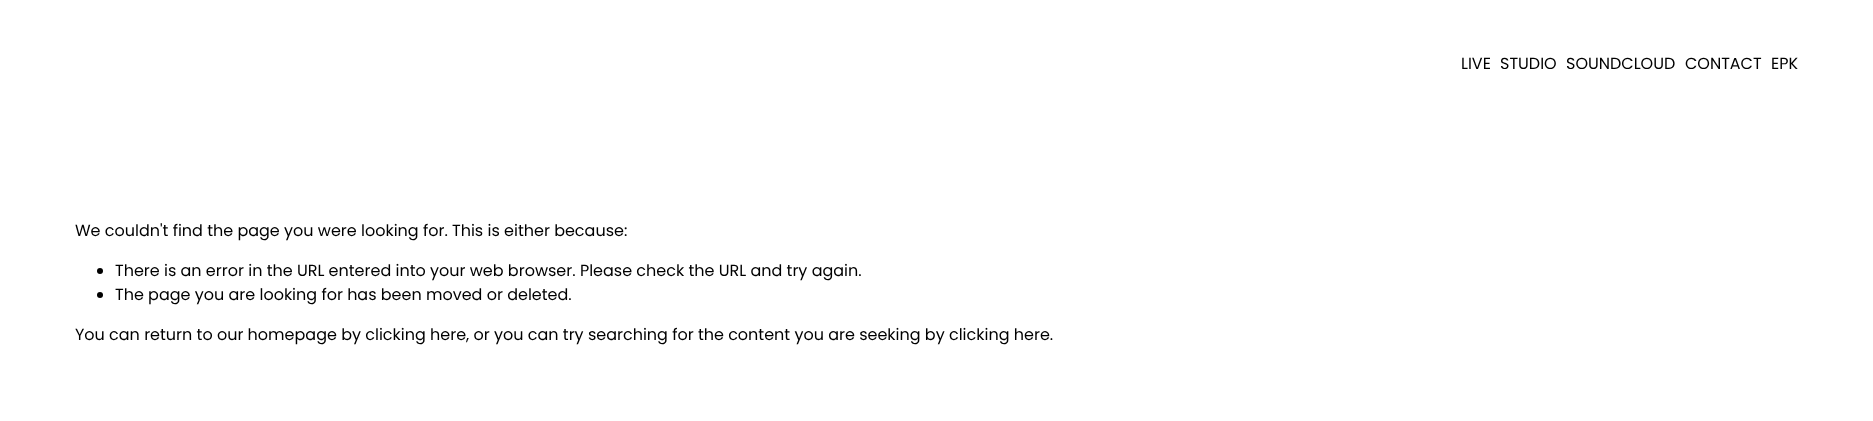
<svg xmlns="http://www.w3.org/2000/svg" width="1873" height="421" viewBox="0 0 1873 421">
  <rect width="100%" height="100%" fill="rgb(255,255,255)"/>
  <g font-family="Poppins" font-size="16" fill="rgb(0,0,0)">
    <text x="1461" y="69">LIVE</text>
    <text x="1500" y="69">STUDIO</text>
    <text x="1566" y="69">SOUNDCLOUD</text>
    <text x="1685" y="69">CONTACT</text>
    <text x="1771" y="69">EPK</text>
    <text x="75" y="236">We couldn't find the page you were looking for. This is either because:</text>
  </g>
  <circle cx="100" cy="271" r="3" fill="rgb(0,0,0)"/>
  <text x="115" y="276" font-family="Poppins" font-size="16" fill="rgb(0,0,0)">There is an error in the URL entered into your web browser. Please check the URL and try again.</text>
  <circle cx="100" cy="295" r="3" fill="rgb(0,0,0)"/>
  <g font-family="Poppins" font-size="16" fill="rgb(0,0,0)">
    <text x="115" y="300">The page you are looking for has been moved or deleted.</text>
    <text x="75" y="340">You can return to our homepage by clicking here, or you can try searching for the content you are seeking by clicking here.</text>
  </g>
</svg>
